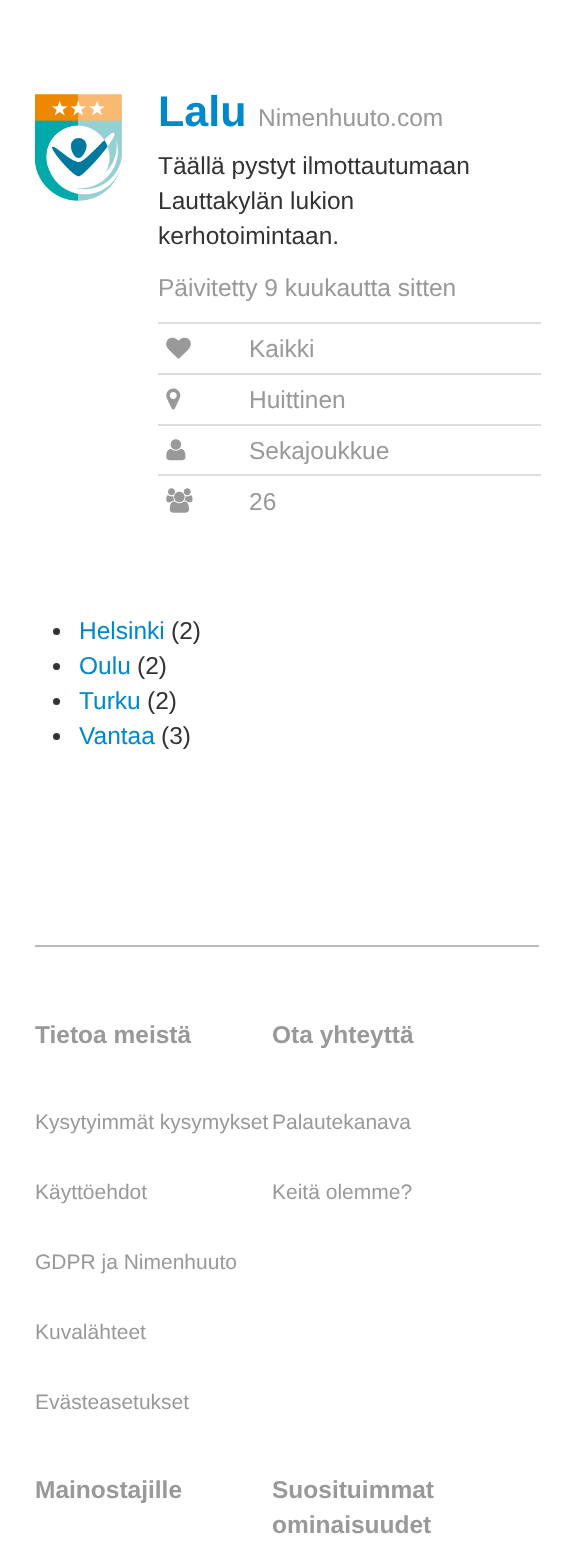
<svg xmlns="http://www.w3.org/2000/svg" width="573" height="1567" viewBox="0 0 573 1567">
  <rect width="100%" height="100%" fill="rgb(255,255,255)"/>
  <image x="35" y="94" width="87" height="107" href="pic1.png"/>
  <text x="158" y="126" font-family="Liberation Sans" font-size="43" font-weight="bold" fill="rgb(0,136,204)">Lalu</text>
  <text x="258" y="126" font-family="Liberation Sans" font-size="24.5" fill="rgb(153,153,153)">Nimenhuuto.com</text>
  <g font-family="Liberation Sans" font-size="24.5" fill="rgb(51,51,51)">
    <text>
      <tspan x="158" y="174">Täällä pystyt ilmottautumaan</tspan>
      <tspan x="158" y="209">Lauttakylän lukion</tspan>
      <tspan x="158" y="244">kerhotoimintaan.</tspan>
    </text>
  </g>
  <text x="158" y="296" font-family="Liberation Sans" font-size="24.5" fill="rgb(153,153,153)">Päivitetty 9 kuukautta sitten</text>
  <image x="166" y="337" width="25" height="22" href="pic2.png"/>
  <rect x="158" y="322" width="383" height="2" fill="rgb(221,221,221)"/>
  <text x="249" y="357" font-family="Liberation Sans" font-size="24.5" fill="rgb(153,153,153)">Kaikki</text>
  <image x="166" y="388" width="15" height="22" href="pic3.png"/>
  <rect x="158" y="373" width="383" height="2" fill="rgb(221,221,221)"/>
  <text x="249" y="408" font-family="Liberation Sans" font-size="24.5" fill="rgb(153,153,153)">Huittinen</text>
  <image x="166" y="439" width="20" height="22" href="pic4.png"/>
  <rect x="158" y="424" width="383" height="2" fill="rgb(221,221,221)"/>
  <text x="249" y="459" font-family="Liberation Sans" font-size="24.5" fill="rgb(153,153,153)">Sekajoukkue</text>
  <image x="166" y="488" width="27" height="25" href="pic5.png"/>
  <rect x="158" y="474" width="383" height="2" fill="rgb(221,221,221)"/>
  <text x="249" y="510" font-family="Liberation Sans" font-size="24.5" fill="rgb(153,153,153)">26</text>
  <circle cx="56.5" cy="631.5" r="3.5" fill="rgb(51,51,51)"/>
  <text x="79" y="639" font-family="Liberation Sans" font-size="24.5" fill="rgb(0,136,204)">Helsinki</text>
  <text x="171" y="639" font-family="Liberation Sans" font-size="24.5" fill="rgb(51,51,51)">(2)</text>
  <circle cx="56.5" cy="666.5" r="3.5" fill="rgb(51,51,51)"/>
  <text x="79" y="674" font-family="Liberation Sans" font-size="24.5" fill="rgb(0,136,204)">Oulu</text>
  <text x="137" y="674" font-family="Liberation Sans" font-size="24.5" fill="rgb(51,51,51)">(2)</text>
  <circle cx="56.5" cy="701.5" r="3.5" fill="rgb(51,51,51)"/>
  <text x="79" y="709" font-family="Liberation Sans" font-size="24.5" fill="rgb(0,136,204)">Turku</text>
  <text x="147" y="709" font-family="Liberation Sans" font-size="24.5" fill="rgb(51,51,51)">(2)</text>
  <circle cx="56.5" cy="736.5" r="3.5" fill="rgb(51,51,51)"/>
  <text x="79" y="744" font-family="Liberation Sans" font-size="24.5" fill="rgb(0,136,204)">Vantaa</text>
  <text x="161" y="744" font-family="Liberation Sans" font-size="24.5" fill="rgb(51,51,51)">(3)</text>
  <rect x="35" y="945" width="504" height="2" fill="rgb(187,187,187)"/>
  <text x="35" y="1043" font-family="Liberation Sans" font-size="24.5" font-weight="bold" fill="rgb(153,153,153)">Tietoa meistä</text>
  <g font-family="Liberation Sans" font-size="21" fill="rgb(153,153,153)">
    <text x="35" y="1129">Kysytyimmät kysymykset</text>
    <text x="35" y="1199">Käyttöehdot</text>
    <text x="35" y="1269">GDPR ja Nimenhuuto</text>
    <text x="35" y="1339">Kuvalähteet</text>
    <text x="35" y="1409">Evästeasetukset</text>
  </g>
  <text x="272" y="1043" font-family="Liberation Sans" font-size="24.5" font-weight="bold" fill="rgb(153,153,153)">Ota yhteyttä</text>
  <g font-family="Liberation Sans" font-size="21" fill="rgb(153,153,153)">
    <text x="272" y="1129">Palautekanava</text>
    <text x="272" y="1199">Keitä olemme?</text>
  </g>
  <g font-family="Liberation Sans" font-size="24.5" font-weight="bold" fill="rgb(153,153,153)">
    <text x="35" y="1498">Mainostajille</text>
    <text>
      <tspan x="272" y="1498">Suosituimmat</tspan>
      <tspan x="272" y="1533">ominaisuudet</tspan>
    </text>
  </g>
</svg>
